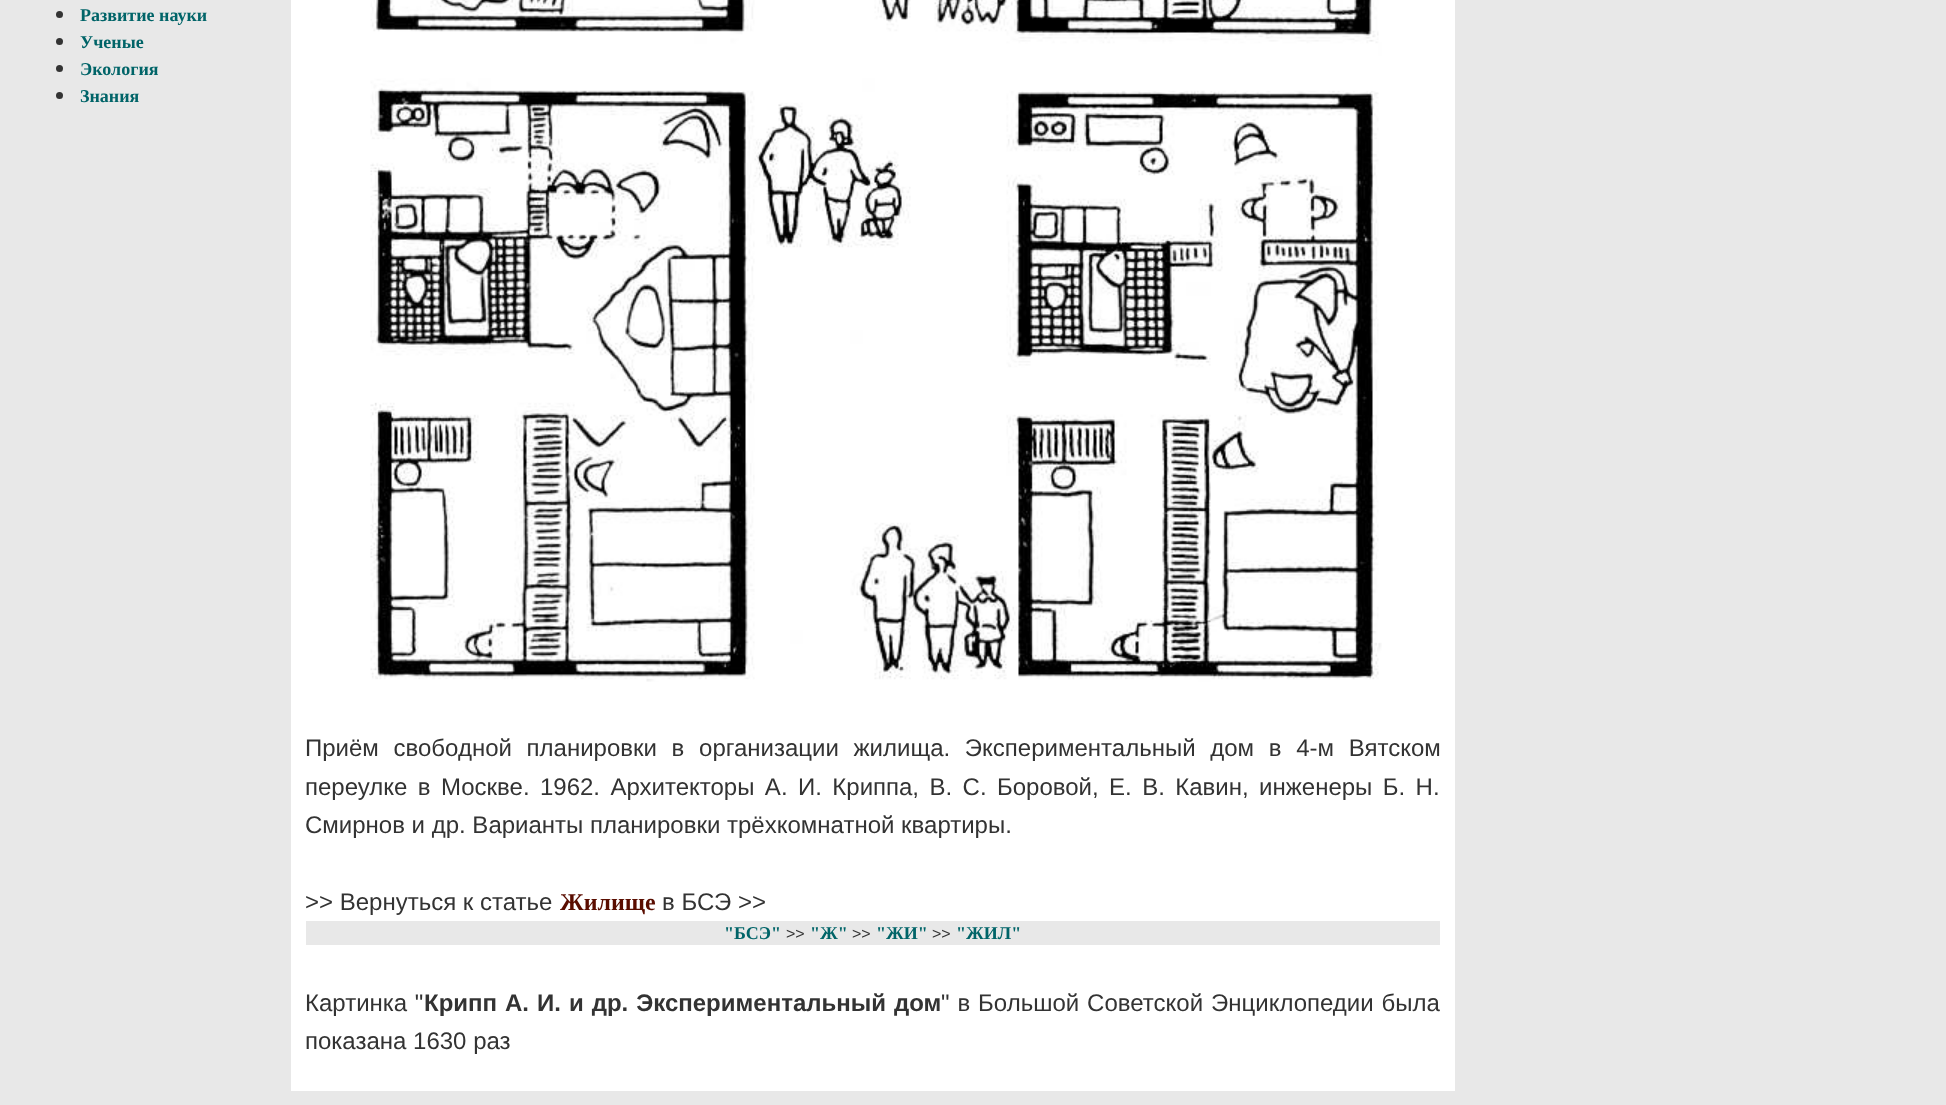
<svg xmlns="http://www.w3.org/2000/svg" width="1946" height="1105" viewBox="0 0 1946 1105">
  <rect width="100%" height="100%" fill="rgb(232,232,232)"/>
  <circle cx="59.5" cy="14.5" r="3.5" fill="rgb(51,51,51)"/>
  <text x="80" y="21" font-family="Liberation Serif" font-size="18" font-weight="bold" fill="rgb(0,100,104)">Развитие науки</text>
  <circle cx="59.5" cy="41.5" r="3.5" fill="rgb(51,51,51)"/>
  <text x="80" y="48" font-family="Liberation Serif" font-size="18" font-weight="bold" fill="rgb(0,100,104)">Ученые</text>
  <circle cx="59.5" cy="68.5" r="3.5" fill="rgb(51,51,51)"/>
  <text x="80" y="75" font-family="Liberation Serif" font-size="18" font-weight="bold" fill="rgb(0,100,104)">Экология</text>
  <circle cx="59.5" cy="95.5" r="3.5" fill="rgb(51,51,51)"/>
  <text x="80" y="102" font-family="Liberation Serif" font-size="18" font-weight="bold" fill="rgb(0,100,104)">Знания</text>
  <rect x="291" y="0" width="1164" height="1091" fill="rgb(255,255,255)"/>
  <image x="370" y="0" width="1012" height="682" href="pic1.png"/>
  <g font-family="Liberation Sans" font-size="24" fill="rgb(51,51,51)">
    <text>
      <tspan x="305" y="756" word-spacing="8">Приём свободной планировки в организации жилища. Экспериментальный дом в 4-м Вятском</tspan>
      <tspan x="305" y="795" word-spacing="3.75">переулке в Москве. 1962. Архитекторы А. И. Криппа, В. С. Боровой, Е. В. Кавин, инженеры Б. Н.</tspan>
      <tspan x="305" y="833">Смирнов и др. Варианты планировки трёхкомнатной квартиры.</tspan>
    </text>
    <text x="305" y="910">&gt;&gt; Вернуться к статье</text>
  </g>
  <text x="560" y="910" font-family="Liberation Serif" font-size="24" font-weight="bold" fill="rgb(90,13,0)">Жилище</text>
  <text x="662" y="910" font-family="Liberation Sans" font-size="24" fill="rgb(51,51,51)">в БСЭ &gt;&gt;</text>
  <rect x="306" y="921" width="1134" height="24" fill="rgb(232,232,232)"/>
  <text x="724" y="939" font-family="Liberation Serif" font-size="18" font-weight="bold" fill="rgb(0,100,104)">"БСЭ"</text>
  <text x="786" y="939" font-family="Liberation Sans" font-size="16" fill="rgb(51,51,51)">&gt;&gt;</text>
  <text x="810" y="939" font-family="Liberation Serif" font-size="18" font-weight="bold" fill="rgb(0,100,104)">"Ж"</text>
  <text x="852" y="939" font-family="Liberation Sans" font-size="16" fill="rgb(51,51,51)">&gt;&gt;</text>
  <text x="876" y="939" font-family="Liberation Serif" font-size="18" font-weight="bold" fill="rgb(0,100,104)">"ЖИ"</text>
  <text x="932" y="939" font-family="Liberation Sans" font-size="16" fill="rgb(51,51,51)">&gt;&gt;</text>
  <text x="956" y="939" font-family="Liberation Serif" font-size="18" font-weight="bold" fill="rgb(0,100,104)">"ЖИЛ"</text>
  <text x="305" y="1011" word-spacing="1" font-family="Liberation Sans" font-size="24" fill="rgb(51,51,51)">Картинка "</text>
  <g font-family="Liberation Sans" font-size="24" font-weight="bold" fill="rgb(51,51,51)">
    <text x="424" y="1011" word-spacing="1.25">Крипп А. И.</text>
    <text x="569" y="1011" word-spacing="1.25">и др. Экспериментальный дом</text>
  </g>
  <g font-family="Liberation Sans" font-size="24" fill="rgb(51,51,51)">
    <text x="941" y="1011" word-spacing="1.25">" в Большой Советской Энциклопедии была</text>
    <text x="305" y="1049">показана 1630 раз</text>
  </g>
</svg>
